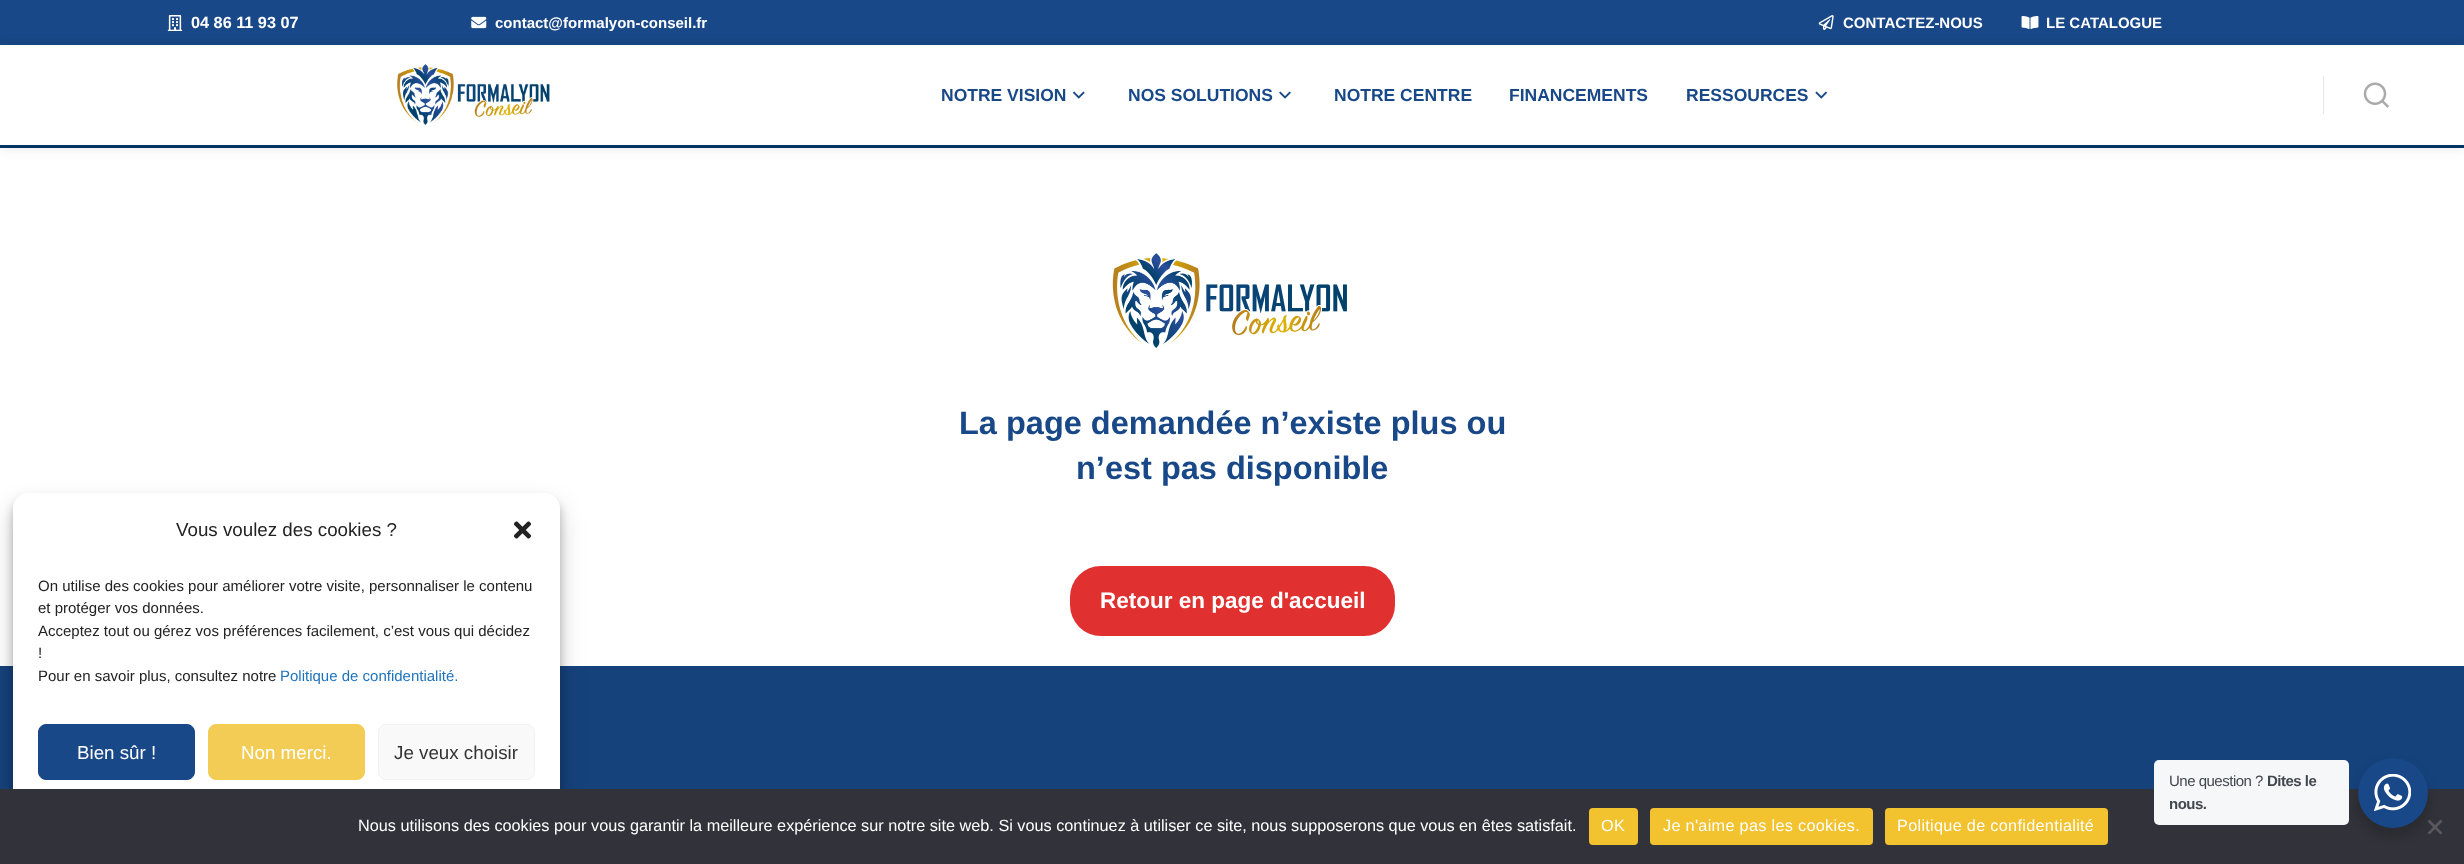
<svg xmlns="http://www.w3.org/2000/svg" width="2464" height="864" viewBox="0 0 2464 864">
  <defs>
    <clipPath id="clip1"><path d="M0 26H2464V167H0ZM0 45H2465V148H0Z" clip-rule="evenodd"/></clipPath>
  </defs>
  <rect width="100%" height="100%" fill="rgb(255,255,255)"/>
  <rect x="0" y="0" width="2464" height="45" fill="rgb(24,72,135)"/>
  <image x="167" y="15" width="16" height="16" href="pic1.png"/>
  <text x="191" y="28" font-family="Liberation Sans" font-size="16.25" font-weight="bold" fill="rgb(255,255,255)">04 86 11 93 07</text>
  <image x="471" y="16" width="16" height="13" href="pic2.png"/>
  <text x="495" y="28" font-family="Liberation Sans" font-size="15" font-weight="bold" fill="rgb(255,255,255)">contact@formalyon-conseil.fr</text>
  <image x="1818" y="15" width="16" height="15" href="pic3.png"/>
  <text x="1843" y="28" font-family="Liberation Sans" font-size="15" font-weight="bold" fill="rgb(255,255,255)">CONTACTEZ-NOUS</text>
  <image x="2021" y="15" width="18" height="14" href="pic4.png"/>
  <text x="2046" y="28" font-family="Liberation Sans" font-size="15" font-weight="bold" fill="rgb(255,255,255)">LE CATALOGUE</text>
  <g clip-path="url(#clip1)">
    <rect x="0" y="45" width="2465" height="103" fill="rgba(0,0,0,0.1)" filter="blur(6px)"/>
  </g>
  <rect x="0" y="145" width="2464" height="3" fill="rgb(5,54,99)"/>
  <image x="397" y="63" width="153" height="62" href="pic5.png"/>
  <text x="941" y="101" font-family="Liberation Sans" font-size="17.5" font-weight="bold" fill="rgb(24,72,135)">NOTRE VISION</text>
  <image x="1072" y="91" width="13" height="8" href="pic6.png"/>
  <text x="1128" y="101" font-family="Liberation Sans" font-size="17.5" font-weight="bold" fill="rgb(24,72,135)">NOS SOLUTIONS</text>
  <image x="1279" y="91" width="12" height="8" href="pic7.png"/>
  <g font-family="Liberation Sans" font-size="17.5" font-weight="bold" fill="rgb(24,72,135)">
    <text x="1334" y="101">NOTRE CENTRE</text>
    <text x="1509" y="101">FINANCEMENTS</text>
    <text x="1686" y="101">RESSOURCES</text>
  </g>
  <image x="1815" y="91" width="13" height="8" href="pic8.png"/>
  <rect x="2323" y="76" width="1" height="38" fill="rgb(230,230,230)"/>
  <image x="2363" y="82" width="26" height="26" href="pic9.png"/>
  <image x="1112" y="253" width="235" height="95" href="pic10.png"/>
  <g font-family="Liberation Sans" font-size="32.5" font-weight="bold" fill="rgb(24,72,135)">
    <text x="959" y="434">La page demandée n’existe plus ou</text>
    <text x="1076" y="479">n’est pas disponible</text>
  </g>
  <rect x="1070" y="566" width="325" height="70" rx="31" fill="rgb(225,48,48)"/>
  <text x="1100" y="608" font-family="Liberation Sans" font-size="22.5" font-weight="bold" fill="rgb(255,255,255)">Retour en page d'accueil</text>
  <rect x="0" y="666" width="2464" height="123" fill="rgb(22,66,124)"/>
  <rect x="13" y="500" width="547" height="360" rx="15" fill="rgba(0,0,0,0.23)" filter="blur(4px)"/>
  <rect x="13" y="505" width="547" height="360" rx="15" fill="rgba(0,0,0,0.19)" filter="blur(12.5px)"/>
  <rect x="13" y="493" width="547" height="360" rx="15" fill="rgb(255,255,255)"/>
  <text x="176" y="536" font-family="Liberation Sans" font-size="18.75" fill="rgb(34,34,34)">Vous voulez des cookies ?</text>
  <image x="513" y="521" width="19" height="18" href="pic11.png"/>
  <g font-family="Liberation Sans" font-size="15" fill="rgb(34,34,34)">
    <text>
      <tspan x="38" y="591">On utilise des cookies pour améliorer votre visite, personnaliser le contenu</tspan>
      <tspan x="38" y="613">et protéger vos données.</tspan>
      <tspan x="38" y="636">Acceptez tout ou gérez vos préférences facilement, c’est vous qui décidez</tspan>
      <tspan x="38" y="658">!</tspan>
      <tspan x="38" y="681">Pour en savoir plus, consultez notre</tspan>
    </text>
  </g>
  <text x="280" y="681" font-family="Liberation Sans" font-size="15" fill="rgb(30,115,190)">Politique de confidentialité.</text>
  <rect x="38.5" y="724.5" width="156" height="55" rx="7.5" fill="rgb(24,72,135)" stroke="rgb(24,72,135)"/>
  <text x="77" y="759" font-family="Liberation Sans" font-size="18.75" fill="rgb(255,255,255)">Bien sûr !</text>
  <rect x="208.5" y="724.5" width="156" height="55" rx="7.5" fill="rgb(243,204,86)" stroke="rgb(243,204,86)"/>
  <text x="241" y="759" font-family="Liberation Sans" font-size="18.75" fill="rgb(255,255,255)">Non merci.</text>
  <rect x="378.5" y="724.5" width="156" height="55" rx="7.5" fill="rgb(249,249,249)" stroke="rgb(242,242,242)"/>
  <text x="394" y="759" font-family="Liberation Sans" font-size="18.75" fill="rgb(51,51,51)">Je veux choisir</text>
  <rect x="0" y="789" width="2464" height="75" fill="rgb(50,50,58)"/>
  <path d="M2440.5 819.5L2442.5 821.5L2429.5 834.5L2427.5 833Z" fill="rgb(89,89,93)"/>
  <path d="M2427.5 821.5L2429.5 819.5L2442.5 833L2440.5 834.5Z" fill="rgb(89,89,93)"/>
  <rect x="2355" y="763" width="75" height="75" rx="37.5" fill="rgba(0,0,0,0.14)" filter="blur(5px)"/>
  <rect x="2154" y="760" width="195" height="65" rx="5" fill="rgb(245,247,249)"/>
  <text x="2169" y="786" font-family="Liberation Sans" font-size="15" letter-spacing="-0.5" fill="rgb(67,71,78)">Une question ?</text>
  <g font-family="Liberation Sans" font-size="15" font-weight="bold" letter-spacing="-0.5" fill="rgb(67,71,78)">
    <text x="2267" y="786">Dites le</text>
    <text x="2169" y="809">nous.</text>
  </g>
  <circle cx="2393" cy="793" r="35" fill="rgb(24,72,135)"/>
  <image x="2374" y="774" width="37" height="37" href="pic12.png"/>
  <text x="358" y="831" font-family="Liberation Sans" font-size="16.25" fill="rgb(255,255,255)">Nous utilisons des cookies pour vous garantir la meilleure expérience sur notre site web. Si vous continuez à utiliser ce site, nous supposerons que vous en êtes satisfait.</text>
  <rect x="1589" y="808" width="49" height="37" rx="4" fill="rgb(243,194,47)"/>
  <text x="1601" y="831" font-family="Liberation Sans" font-size="16.25" letter-spacing="0.3" fill="rgb(255,255,255)">OK</text>
  <rect x="1650" y="808" width="223" height="37" rx="4" fill="rgb(243,194,47)"/>
  <text x="1663" y="831" font-family="Liberation Sans" font-size="16.25" letter-spacing="0.3" fill="rgb(255,255,255)">Je n'aime pas les cookies.</text>
  <rect x="1885" y="808" width="223" height="37" rx="4" fill="rgb(243,194,47)"/>
  <text x="1897" y="831" font-family="Liberation Sans" font-size="16.25" letter-spacing="0.3" fill="rgb(255,255,255)">Politique de confidentialité</text>
</svg>
